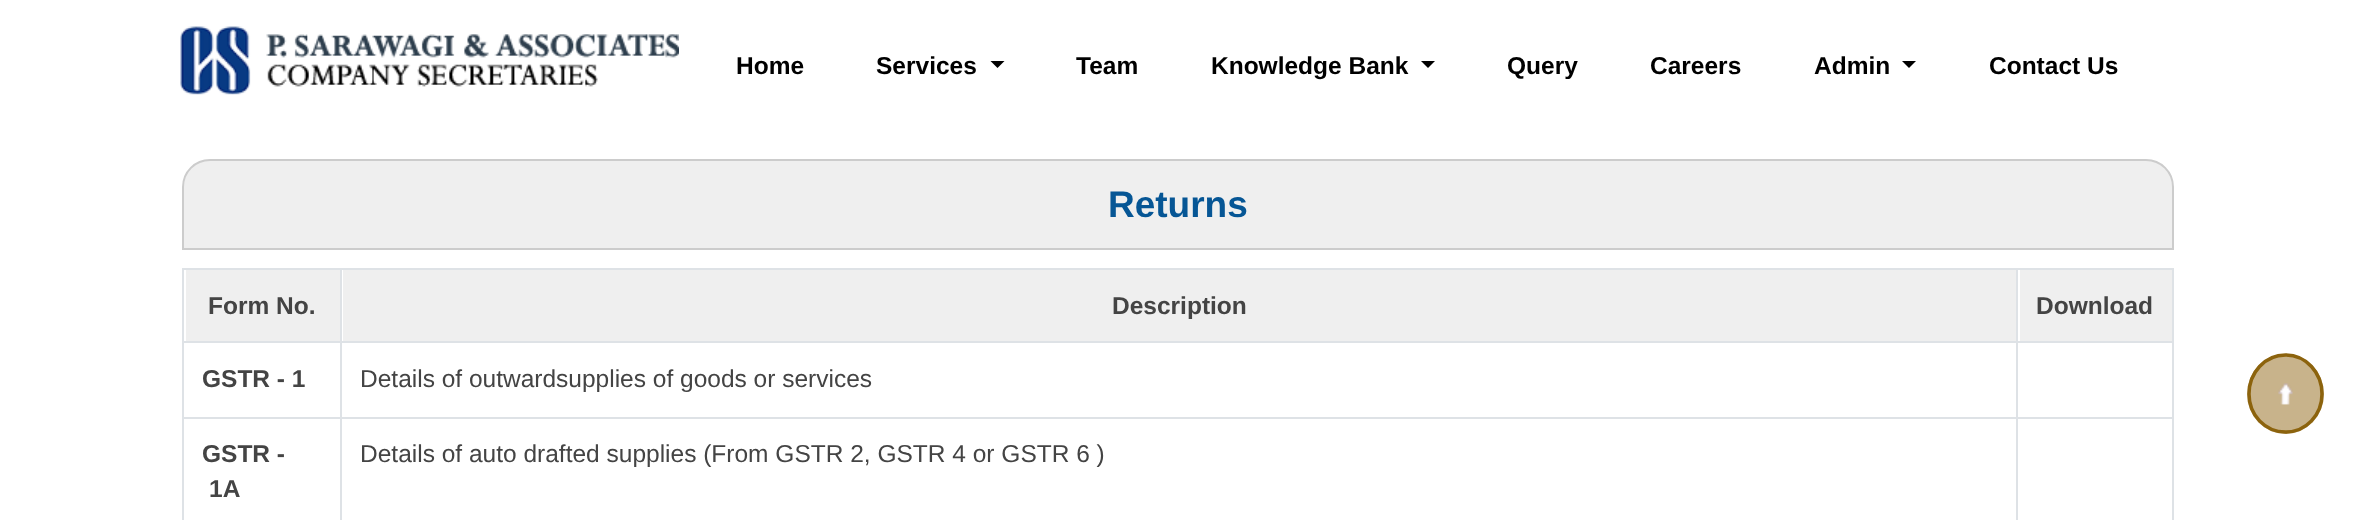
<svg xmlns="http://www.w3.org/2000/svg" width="2355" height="520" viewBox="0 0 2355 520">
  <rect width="100%" height="100%" fill="rgb(255,255,255)"/>
  <image x="180" y="26" width="499" height="69" href="pic1.png"/>
  <g font-family="Liberation Sans" font-size="24.5" font-weight="bold" fill="rgb(0,0,0)">
    <text x="736" y="74">Home</text>
    <text x="876" y="74">Services</text>
  </g>
  <path d="M990.5 61H1004.5L997.5 68Z" fill="rgb(0,0,0)"/>
  <g font-family="Liberation Sans" font-size="24.5" font-weight="bold" fill="rgb(0,0,0)">
    <text x="1076" y="74">Team</text>
    <text x="1211" y="74">Knowledge Bank</text>
  </g>
  <path d="M1421 61H1435L1428 68Z" fill="rgb(0,0,0)"/>
  <g font-family="Liberation Sans" font-size="24.5" font-weight="bold" fill="rgb(0,0,0)">
    <text x="1507" y="74">Query</text>
    <text x="1650" y="74">Careers</text>
    <text x="1814" y="74">Admin</text>
  </g>
  <path d="M1902 61H1916L1909 68Z" fill="rgb(0,0,0)"/>
  <text x="1989" y="74" font-family="Liberation Sans" font-size="24.5" font-weight="bold" fill="rgb(0,0,0)">Contact Us</text>
  <path d="M210 160H2146C2161 160 2173 172 2173 187V249H183V187C183 172 195 160 210 160Z" fill="rgb(239,239,239)" stroke="rgb(204,204,204)" stroke-width="2"/>
  <text x="1108" y="217" font-family="Liberation Sans" font-size="37" font-weight="bold" fill="rgb(6,86,149)">Returns</text>
  <rect x="182" y="268" width="1992" height="2" fill="rgb(222,226,230)"/>
  <rect x="2172" y="268" width="2" height="252" fill="rgb(222,226,230)"/>
  <rect x="182" y="268" width="2" height="252" fill="rgb(222,226,230)"/>
  <rect x="186" y="270" width="154" height="71" fill="rgb(239,239,239)"/>
  <text x="208" y="314" font-family="Liberation Sans" font-size="24.5" font-weight="bold" fill="rgb(68,68,68)">Form No.</text>
  <rect x="343" y="270" width="1673" height="71" fill="rgb(239,239,239)"/>
  <text x="1112" y="314" font-family="Liberation Sans" font-size="24.5" font-weight="bold" fill="rgb(68,68,68)">Description</text>
  <rect x="2020" y="270" width="152" height="71" fill="rgb(239,239,239)"/>
  <text x="2036" y="314" font-family="Liberation Sans" font-size="24.5" font-weight="bold" fill="rgb(68,68,68)">Download</text>
  <rect x="182" y="341" width="1992" height="2" fill="rgb(222,226,230)"/>
  <text x="202" y="387" font-family="Liberation Sans" font-size="24.5" font-weight="bold" fill="rgb(68,68,68)">GSTR - 1</text>
  <text x="360" y="387" font-family="Liberation Sans" font-size="24.5" fill="rgb(68,68,68)">Details of outwardsupplies of goods or services</text>
  <rect x="182" y="417" width="1992" height="2" fill="rgb(222,226,230)"/>
  <g font-family="Liberation Sans" font-size="24.5" font-weight="bold" fill="rgb(68,68,68)">
    <text x="202" y="462">GSTR -</text>
    <text x="209" y="497">1A</text>
  </g>
  <rect x="340" y="268" width="2" height="252" fill="rgb(222,226,230)"/>
  <text x="360" y="462" font-family="Liberation Sans" font-size="24.5" fill="rgb(68,68,68)">Details of auto drafted supplies (From GSTR 2, GSTR 4 or GSTR 6 )</text>
  <rect x="2016" y="268" width="2" height="252" fill="rgb(222,226,230)"/>
  <ellipse cx="2285.5" cy="394" rx="38.5" ry="40" fill="rgb(200,179,139)"/>
  <path d="M2285.5 355C2306 355 2322 372.5 2322 394C2322 415 2306 432 2285.5 432C2265 432 2249 415 2249 394C2249 372.5 2265 355 2285.5 355Z" fill="none" stroke="rgb(140,99,13)" stroke-width="3.5"/>
  <image x="2278" y="383" width="15" height="22" href="pic2.png"/>
</svg>
